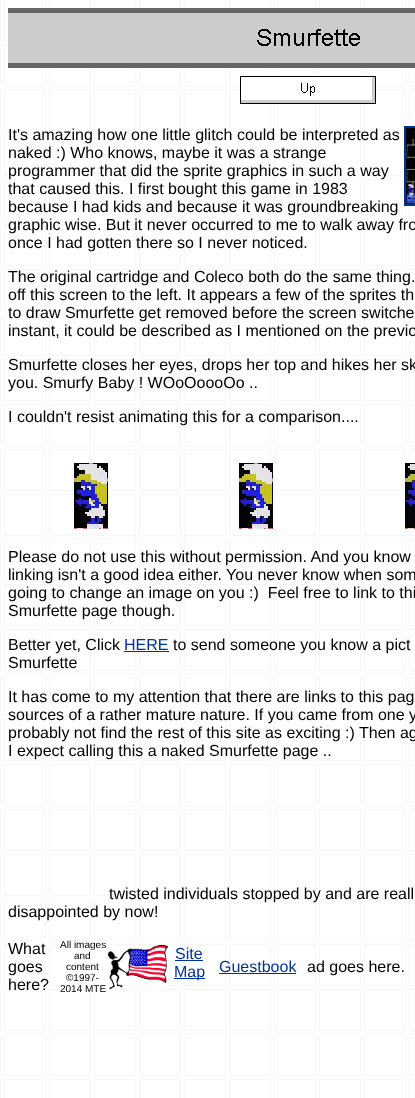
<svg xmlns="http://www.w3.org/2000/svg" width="415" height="1098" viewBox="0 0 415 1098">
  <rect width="100%" height="100%" fill="rgb(255,255,255)"/>
  <image x="0" y="0" width="415" height="1098" href="pic1.png"/>
  <image x="8" y="8" width="407" height="60" href="pic2.png"/>
  <image x="240" y="76" width="136" height="28" href="pic3.png"/>
  <text x="8" y="140" font-family="Liberation Sans" font-size="16" fill="rgb(0,0,0)">It's amazing how one little glitch could be interpreted as</text>
  <rect x="405" y="127" width="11" height="78" fill="none" stroke="rgb(0,51,153)" stroke-width="2"/>
  <image x="406" y="128" width="9" height="76" href="pic4.png"/>
  <g font-family="Liberation Sans" font-size="16" fill="rgb(0,0,0)">
    <text>
      <tspan x="8" y="158">naked :) Who knows, maybe it was a strange</tspan>
      <tspan x="8" y="176">programmer that did the sprite graphics in such a way</tspan>
      <tspan x="8" y="194">that caused this. I first bought this game in 1983</tspan>
      <tspan x="8" y="212">because I had kids and because it was groundbreaking</tspan>
      <tspan x="8" y="230">graphic wise. But it never occurred to me to walk away fro</tspan>
      <tspan x="8" y="248">once I had gotten there so I never noticed.</tspan>
    </text>
    <text>
      <tspan x="8" y="282">The original cartridge and Coleco both do the same thing.</tspan>
      <tspan x="8" y="300">off this screen to the left. It appears a few of the sprites th</tspan>
      <tspan x="8" y="318">to draw Smurfette get removed before the screen switche</tspan>
      <tspan x="8" y="336">instant, it could be described as I mentioned on the previo</tspan>
    </text>
    <text>
      <tspan x="8" y="370">Smurfette closes her eyes, drops her top and hikes her sk</tspan>
      <tspan x="8" y="388">you. Smurfy Baby ! WOoOoooOo ..</tspan>
    </text>
    <text x="8" y="422">I couldn't resist animating this for a comparison....</text>
  </g>
  <image x="74" y="463" width="34" height="66" href="pic5.png"/>
  <image x="239" y="463" width="34" height="66" href="pic5.png"/>
  <image x="405" y="463" width="10" height="66" href="pic6.png"/>
  <g font-family="Liberation Sans" font-size="16" fill="rgb(0,0,0)">
    <text xml:space="preserve"><tspan x="8" y="562">Please do not use this without permission. And you know</tspan><tspan x="8" y="580">linking isn't a good idea either. You never know when som</tspan><tspan x="8" y="598">going to change an image on you :)  Feel free to link to thi</tspan><tspan x="8" y="616">Smurfette page though.</tspan></text>
    <text x="8" y="650">Better yet, Click</text>
  </g>
  <text x="124" y="650" font-family="Liberation Sans" font-size="16" fill="rgb(0,51,153)">HERE</text>
  <rect x="124" y="651" width="45" height="1" fill="rgb(0,51,153)"/>
  <g font-family="Liberation Sans" font-size="16" fill="rgb(0,0,0)">
    <text x="173" y="650">to send someone you know a pict</text>
    <text x="8" y="668">Smurfette</text>
    <text>
      <tspan x="8" y="702">It has come to my attention that there are links to this pag</tspan>
      <tspan x="8" y="720">sources of a rather mature nature. If you came from one y</tspan>
      <tspan x="8" y="738">probably not find the rest of this site as exciting :) Then ag</tspan>
      <tspan x="8" y="756">I expect calling this a naked Smurfette page ..</tspan>
    </text>
    <text x="109" y="899">twisted individuals stopped by and are reall</text>
    <text x="8" y="917">disappointed by now!</text>
    <text>
      <tspan x="8" y="954">What</tspan>
      <tspan x="8" y="972">goes</tspan>
      <tspan x="8" y="990">here?</tspan>
    </text>
  </g>
  <g font-family="Liberation Sans" font-size="10" fill="rgb(0,0,0)">
    <text x="60" y="948">All images</text>
    <text x="74" y="959">and</text>
    <text>
      <tspan x="66" y="970">content</tspan>
      <tspan x="66" y="981">©1997-</tspan>
    </text>
    <text x="60" y="992">2014 MTE</text>
  </g>
  <image x="108" y="945" width="60" height="44" href="pic7.png"/>
  <text x="175" y="959" font-family="Liberation Sans" font-size="16" fill="rgb(0,51,153)">Site</text>
  <rect x="175" y="960" width="28" height="1" fill="rgb(0,51,153)"/>
  <rect x="174" y="978" width="31" height="1" fill="rgb(0,51,153)"/>
  <g font-family="Liberation Sans" font-size="16" fill="rgb(0,51,153)">
    <text x="174" y="977">Map</text>
    <text x="219" y="972">Guestbook</text>
  </g>
  <rect x="219" y="973" width="77" height="1" fill="rgb(0,51,153)"/>
  <text x="307" y="972" font-family="Liberation Sans" font-size="16" fill="rgb(0,0,0)">ad goes here.</text>
</svg>
